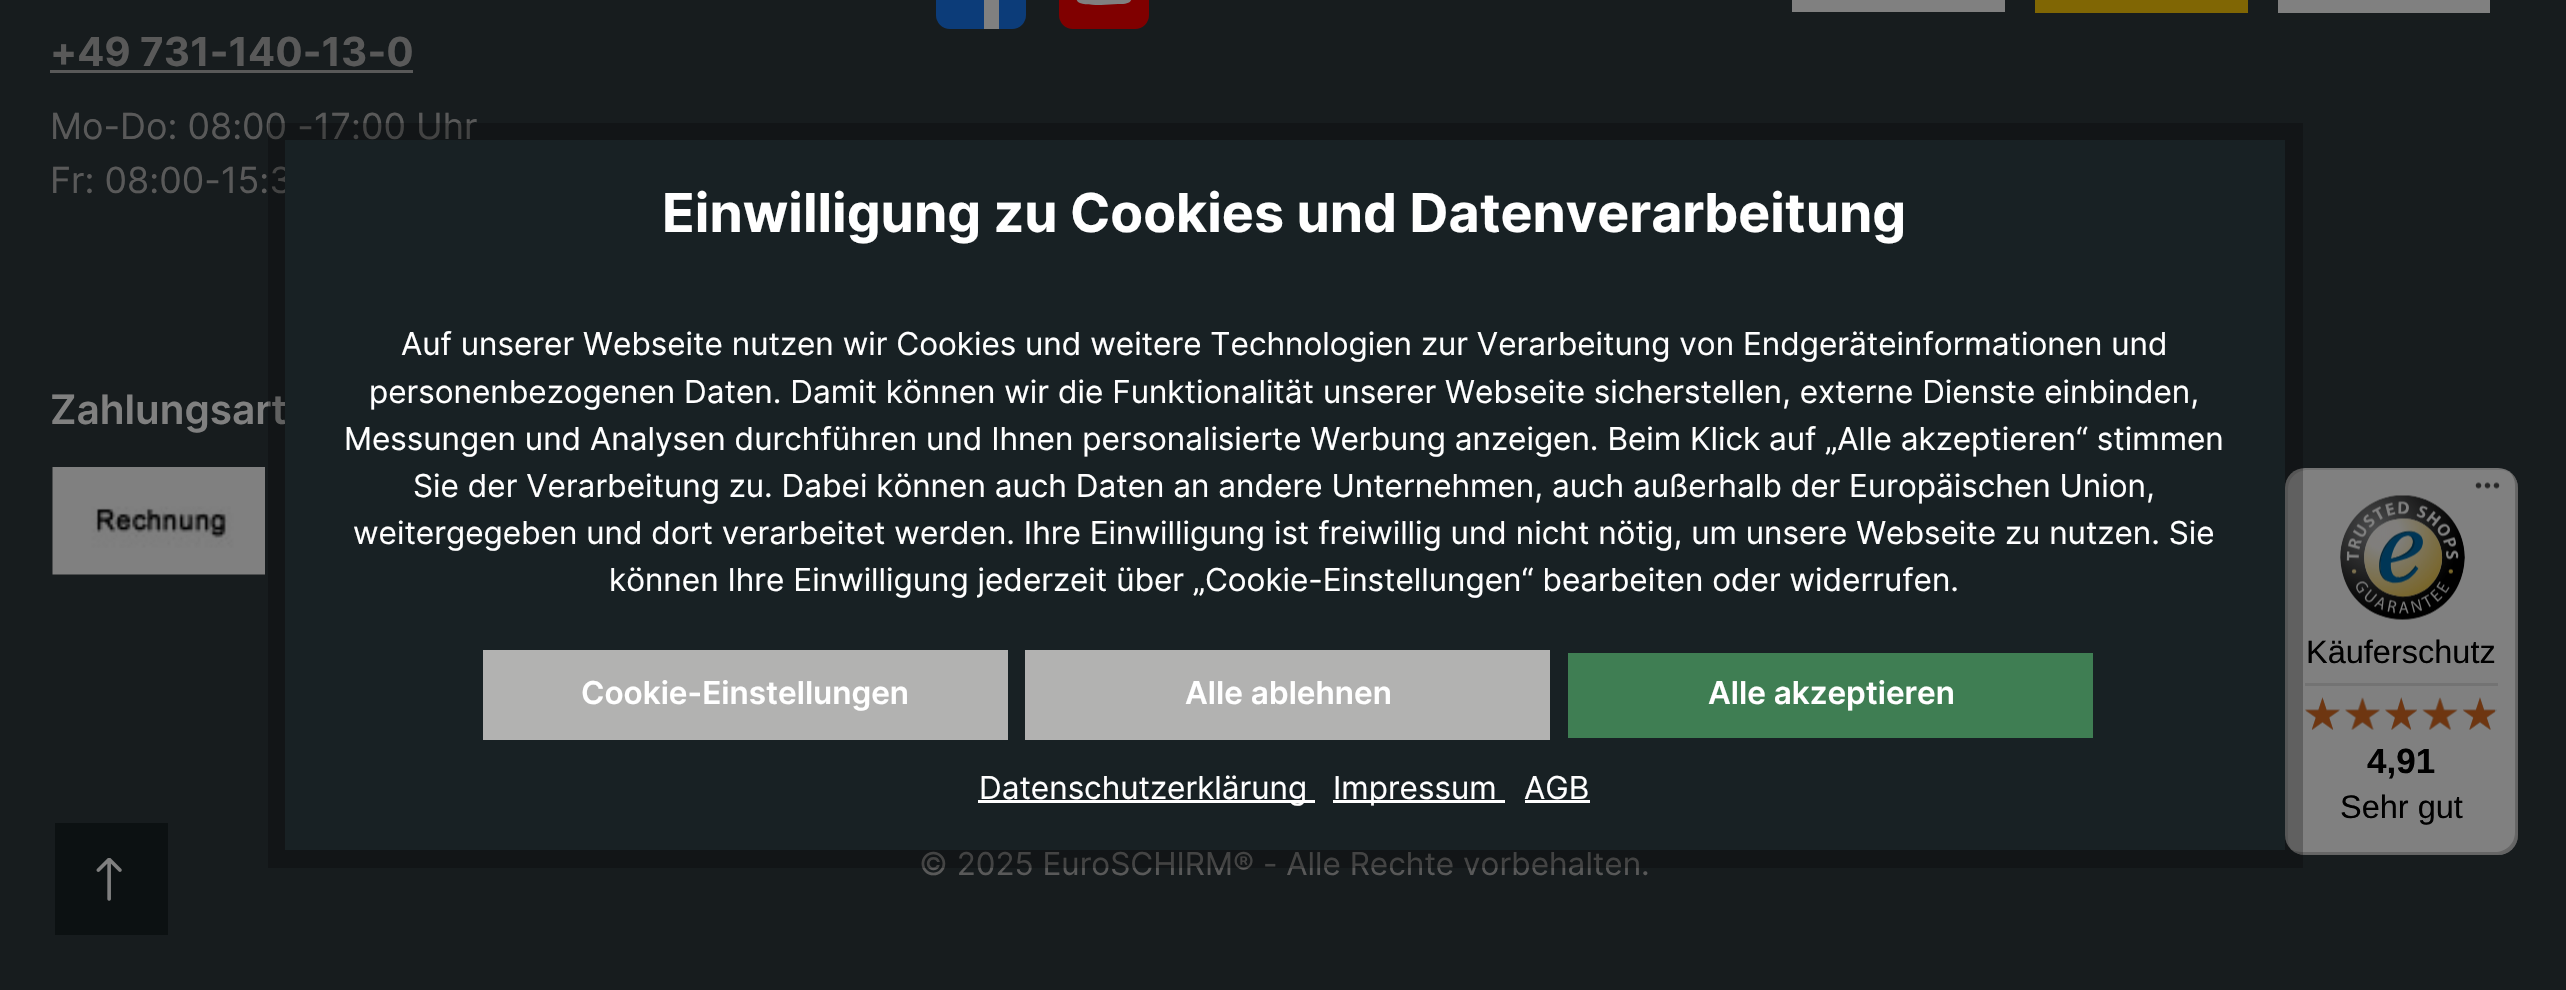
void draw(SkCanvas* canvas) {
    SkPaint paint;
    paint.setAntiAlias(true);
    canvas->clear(0xFF171C1E);
    paint.setColor(0xFF0C3C79);
    canvas->drawRoundRect(SkRect::MakeXYWH(936, -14, 90, 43), 14, 14, paint);
    paint.setColor(0xFF808080);
    canvas->drawPath(SkPathBuilder().moveTo(1010, -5).lineTo(1012, -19).lineTo(999, -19).cubicTo(999, -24, 997, -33, 1004, -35).lineTo(1012, -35).lineTo(1012, -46).cubicTo(1001, -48, 987, -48, 984, -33).lineTo(984, -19).lineTo(972, -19).lineTo(972, -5).lineTo(984, -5).lineTo(984, 29).lineTo(999, 29).lineTo(999, -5).close().detach(), paint);
    paint.setColor(0xFF800000);
    canvas->drawRoundRect(SkRect::MakeXYWH(1059, -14, 90, 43), 14, 14, paint);
    paint.setColor(0xFF808080);
    canvas->drawPath(SkPathBuilder().moveTo(1132, -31).cubicTo(1131, -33, 1130, -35, 1128, -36).cubicTo(1122, -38, 1098, -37, 1090, -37).cubicTo(1086, -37, 1080, -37, 1077, -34).cubicTo(1073, -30, 1074, -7, 1076, -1).lineTo(1078, 2).cubicTo(1082, 5, 1095, 5, 1101, 5).lineTo(1118, 4).cubicTo(1130, 4, 1132, 3, 1133, -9).cubicTo(1134, -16, 1133, -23, 1132, -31).close().moveTo(1098, -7).lineTo(1098, -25).lineTo(1113, -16).close().detach(), paint);
    canvas->drawRect(SkRect::MakeXYWH(1792, 0, 213, 12), paint);
    paint.setColor(0xFF806604);
    canvas->drawRect(SkRect::MakeXYWH(2035, 0, 213, 13), paint);
    paint.setColor(0xFF808080);
    canvas->drawRect(SkRect::MakeXYWH(2278, 0, 212, 13), paint);
    SkFont font1(fontMgr->matchFamilyStyle("Inter", SkFontStyle::Bold()), 40);
    font1.setSubpixel(true);
    paint.setColor(0xFF595959);
    canvas->drawString("+49 731-140-13-0", 50, 66, font1, paint);
    canvas->drawRect(SkRect::MakeXYWH(50, 70, 363, 3), paint);
    SkFont font2(fontMgr->matchFamilyStyle("Inter", SkFontStyle::Normal()), 36);
    font2.setSubpixel(true);
    canvas->drawString("Mo-Do: 08:00 -17:00 Uhr", 50, 139, font2, paint);
    canvas->drawString("Fr: 08:00-15:3", 50, 193, font2, paint);
    SkFont font3(fontMgr->matchFamilyStyle("Inter", SkFontStyle(600, SkFontStyle::kNormal_Width, SkFontStyle::kUpright_Slant)), 40.5f);
    font3.setSubpixel(true);
    paint.setColor(0xFF808080);
    canvas->drawString("Zahlungsart", 50, 424, font3, paint);
    canvas->drawImageRect(SkImages::DeferredFromEncodedData(SkData::MakeFromFileName("img1.png")), SkRect::MakeXYWH(52, 467, 213, 108), SkSamplingOptions());
    SkFont font4(fontMgr->matchFamilyStyle("Inter", SkFontStyle::Normal()), 31.5f);
    font4.setSubpixel(true);
    paint.setColor(0xFF595959);
    canvas->drawString("© 2025 EuroSCHIRM® - Alle Rechte vorbehalten.", 919, 875, font4, paint);
    paint.setColor(0xFF808080);
    canvas->drawRoundRect(SkRect::MakeXYWH(2285, 468, 233, 387), 20, 20, paint);
    paint.setColor(0x1A000000);
    canvas->drawPath(SkPathBuilder().moveTo(2308, 470).lineTo(2500, 470).cubicTo(2505, 470, 2510, 472, 2513, 475).cubicTo(2510, 471, 2504, 468, 2498, 468).lineTo(2305, 468).cubicTo(2294, 468, 2285, 477, 2285, 488).lineTo(2285, 835).cubicTo(2285, 841, 2288, 846, 2292, 850).cubicTo(2289, 847, 2288, 842, 2288, 838).lineTo(2288, 490).cubicTo(2288, 479, 2296, 470, 2308, 470).close().detach(), paint);
    paint.setColor(0x33000000);
    canvas->drawPath(SkPathBuilder().moveTo(2290, 848).cubicTo(2294, 852, 2299, 855, 2305, 855).lineTo(2498, 855).cubicTo(2509, 855, 2518, 846, 2518, 835).lineTo(2518, 488).cubicTo(2518, 482, 2515, 476, 2510, 472).cubicTo(2513, 476, 2515, 480, 2515, 485).lineTo(2515, 832).cubicTo(2515, 844, 2506, 852, 2495, 852).lineTo(2302, 852).cubicTo(2298, 852, 2293, 851, 2290, 848).close().detach(), paint);
    paint.setColor(0x33191919);
    canvas->drawPath(SkPathBuilder().moveTo(2293, 851).cubicTo(2296, 853, 2300, 855, 2305, 855).lineTo(2498, 855).cubicTo(2509, 855, 2518, 846, 2518, 835).lineTo(2518, 488).cubicTo(2518, 482, 2515, 476, 2511, 473).cubicTo(2514, 476, 2516, 481, 2516, 486).lineTo(2516, 834).cubicTo(2516, 845, 2507, 854, 2496, 854).lineTo(2304, 854).cubicTo(2300, 854, 2296, 853, 2293, 851).close().detach(), paint);
    paint.setColor(0x4D808080);
    canvas->drawPath(SkPathBuilder().moveTo(2290, 848).cubicTo(2294, 852, 2299, 855, 2305, 855).lineTo(2498, 855).cubicTo(2509, 855, 2518, 846, 2518, 835).lineTo(2518, 488).cubicTo(2518, 482, 2515, 476, 2511, 473).cubicTo(2514, 476, 2516, 481, 2516, 486).lineTo(2516, 834).cubicTo(2516, 845, 2507, 854, 2496, 854).lineTo(2304, 854).cubicTo(2299, 854, 2294, 852, 2290, 848).close().detach(), paint);
    paint.setStyle(SkPaint::kStroke_Style);
    paint.setStrokeWidth(18);
    paint.setColor(0x40000000);
    canvas->drawRect(SkRect::MakeXYWH(277, 132, 2017, 727), paint);
    paint.setStyle(SkPaint::kFill_Style);
    paint.setColor(0xFF182124);
    canvas->drawRect(SkRect::MakeXYWH(285, 140, 2000, 710), paint);
    SkFont font5(fontMgr->matchFamilyStyle("Inter", SkFontStyle::Bold()), 53.6f);
    font5.setSubpixel(true);
    paint.setColor(0xFFFFFFFF);
    canvas->drawString("Einwilligung zu Cookies und Datenverarbeitung", 662, 232, font5, paint);
    canvas->drawString("Auf unserer Webseite nutzen wir Cookies und weitere Technologien zur Verarbeitung von Endgeräteinformationen und", 401, 355, font4, paint);
    canvas->drawString("personenbezogenen Daten. Damit können wir die Funktionalität unserer Webseite sicherstellen, externe Dienste einbinden,", 369, 403, font4, paint);
    canvas->drawString("Messungen und Analysen durchführen und Ihnen personalisierte Werbung anzeigen. Beim Klick auf „Alle akzeptieren“ stimmen", 344, 450, font4, paint);
    canvas->drawString("Sie der Verarbeitung zu. Dabei können auch Daten an andere Unternehmen, auch außerhalb der Europäischen Union,", 413, 497, font4, paint);
    canvas->drawString("weitergegeben und dort verarbeitet werden. Ihre Einwilligung ist freiwillig und nicht nötig, um unsere Webseite zu nutzen. Sie", 353, 544, font4, paint);
    canvas->drawString("können Ihre Einwilligung jederzeit über „Cookie-Einstellungen“ bearbeiten oder widerrufen.", 609, 591, font4, paint);
    paint.setColor(0xFFB2B2B1);
    canvas->drawRect(SkRect::MakeXYWH(483, 650, 525, 90), paint);
    SkFont font6(fontMgr->matchFamilyStyle("Inter", SkFontStyle(600, SkFontStyle::kNormal_Width, SkFontStyle::kUpright_Slant)), 31.5f);
    font6.setSubpixel(true);
    paint.setColor(0xFFFFFFFF);
    canvas->drawString("Cookie-Einstellungen", 581, 704, font6, paint);
    paint.setColor(0xFFB2B2B1);
    canvas->drawRect(SkRect::MakeXYWH(1025, 650, 525, 90), paint);
    paint.setColor(0xFFFFFFFF);
    canvas->drawString("Alle ablehnen", 1185, 704, font6, paint);
    paint.setColor(0xFF3F7E53);
    canvas->drawRect(SkRect::MakeXYWH(1568, 653, 525, 85), paint);
    paint.setColor(0xFFFFFFFF);
    canvas->drawString("Alle akzeptieren", 1708, 704, font6, paint);
    canvas->drawRect(SkRect::MakeXYWH(978, 800, 337, 3), paint);
    canvas->drawString("Datenschutzerklärung", 979, 799, font4, paint);
    canvas->drawRect(SkRect::MakeXYWH(1333, 800, 172, 3), paint);
    canvas->drawString("Impressum", 1333, 799, font4, paint);
    canvas->drawString("AGB", 1524, 799, font4, paint);
    canvas->drawRect(SkRect::MakeXYWH(1525, 800, 65, 3), paint);
    canvas->drawImageRect(SkImages::DeferredFromEncodedData(SkData::MakeFromFileName("img2.png")), SkRect::MakeXYWH(2475, 482, 25, 7), SkSamplingOptions());
    canvas->drawImageRect(SkImages::DeferredFromEncodedData(SkData::MakeFromFileName("img3.png")), SkRect::MakeXYWH(2340, 495, 125, 125), SkSamplingOptions());
    SkFont font7(fontMgr->matchFamilyStyle("Liberation Sans", SkFontStyle::Normal()), 32.5f);
    font7.setSubpixel(true);
    paint.setColor(0xFF000000);
    canvas->drawString("Käuferschutz", 2306, 663, font7, paint);
    paint.setColor(0xFF737373);
    canvas->drawRect(SkRect::MakeXYWH(2305, 683, 193, 3), paint);
    canvas->drawImageRect(SkImages::DeferredFromEncodedData(SkData::MakeFromFileName("img4.png")), SkRect::MakeXYWH(2305, 697, 35, 33), SkSamplingOptions());
    canvas->drawImageRect(SkImages::DeferredFromEncodedData(SkData::MakeFromFileName("img5.png")), SkRect::MakeXYWH(2345, 698, 35, 32), SkSamplingOptions());
    canvas->drawImageRect(SkImages::DeferredFromEncodedData(SkData::MakeFromFileName("img6.png")), SkRect::MakeXYWH(2385, 697, 32, 33), SkSamplingOptions());
    canvas->drawImageRect(SkImages::DeferredFromEncodedData(SkData::MakeFromFileName("img7.png")), SkRect::MakeXYWH(2423, 698, 34, 32), SkSamplingOptions());
    canvas->drawImageRect(SkImages::DeferredFromEncodedData(SkData::MakeFromFileName("img8.png")), SkRect::MakeXYWH(2463, 697, 34, 33), SkSamplingOptions());
    canvas->drawImageRect(SkImages::DeferredFromEncodedData(SkData::MakeFromFileName("img9.png")), SkRect::MakeXYWH(2305, 697, 35, 33), SkSamplingOptions());
    canvas->drawImageRect(SkImages::DeferredFromEncodedData(SkData::MakeFromFileName("img10.png")), SkRect::MakeXYWH(2345, 697, 35, 33), SkSamplingOptions());
    canvas->drawImageRect(SkImages::DeferredFromEncodedData(SkData::MakeFromFileName("img11.png")), SkRect::MakeXYWH(2385, 697, 32, 33), SkSamplingOptions());
    canvas->drawImageRect(SkImages::DeferredFromEncodedData(SkData::MakeFromFileName("img12.png")), SkRect::MakeXYWH(2422, 697, 36, 33), SkSamplingOptions());
    canvas->drawImageRect(SkImages::DeferredFromEncodedData(SkData::MakeFromFileName("img13.png")), SkRect::MakeXYWH(2463, 697, 32, 33), SkSamplingOptions());
    SkFont font8(fontMgr->matchFamilyStyle("Liberation Sans", SkFontStyle::Bold()), 35);
    font8.setSubpixel(true);
    paint.setColor(0xFF000000);
    canvas->drawString("4,91", 2367, 773, font8, paint);
    canvas->drawString("Sehr gut", 2340, 818, font7, paint);
    paint.setColor(0xFF0C1112);
    canvas->drawRect(SkRect::MakeXYWH(55, 823, 113, 112), paint);
    canvas->drawImageRect(SkImages::DeferredFromEncodedData(SkData::MakeFromFileName("img14.png")), SkRect::MakeXYWH(96, 858, 26, 43), SkSamplingOptions());
}
